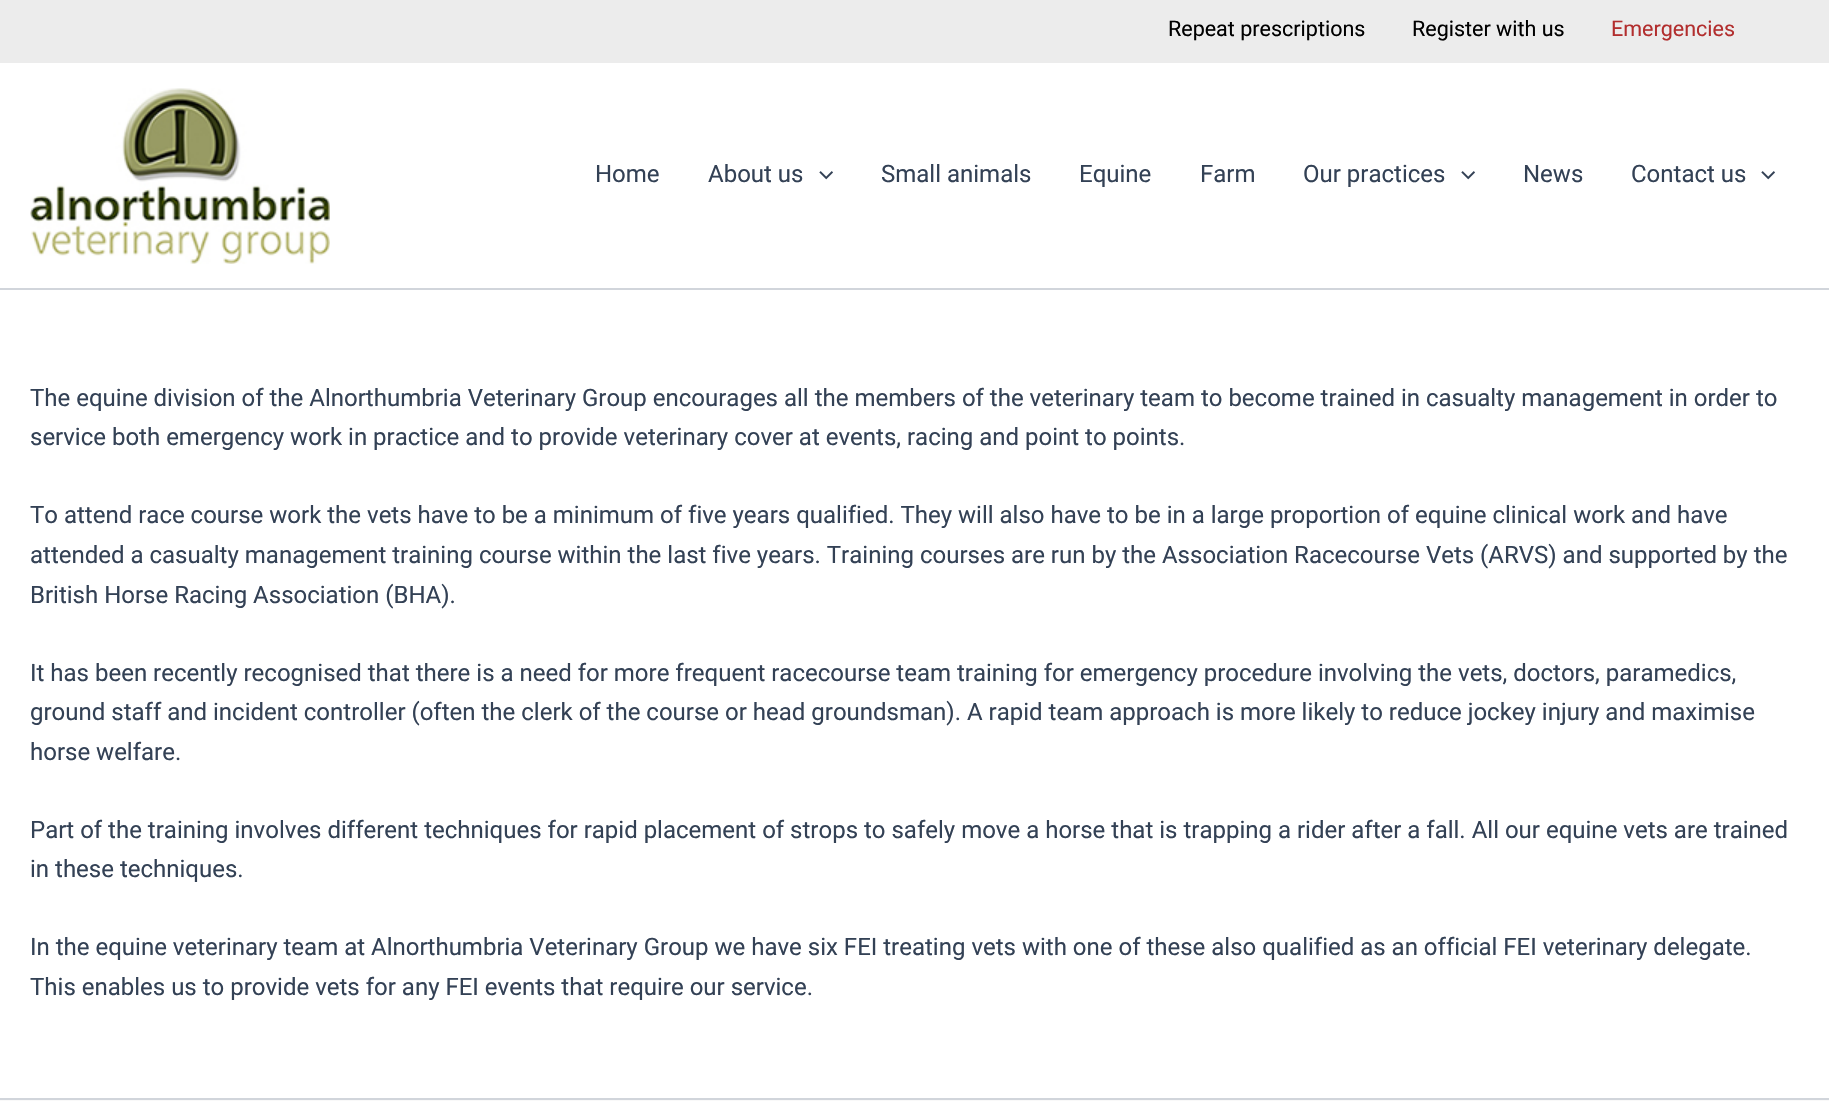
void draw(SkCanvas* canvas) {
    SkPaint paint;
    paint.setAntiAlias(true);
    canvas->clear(0xFFFFFFFF);
    paint.setColor(0xFFECECEC);
    canvas->drawRect(SkRect::MakeXYWH(0, 0, 1829, 63), paint);
    SkFont font1(fontMgr->matchFamilyStyle("Roboto", SkFontStyle::Normal()), 21.5f);
    font1.setSubpixel(true);
    paint.setColor(0xFF000000);
    canvas->drawString("Repeat prescriptions", 1168, 36, font1, paint);
    canvas->drawString("Register with us", 1412, 36, font1, paint);
    paint.setColor(0xFFB22E2E);
    canvas->drawString("Emergencies", 1611, 36, font1, paint);
    paint.setColor(0xFFD1D5DB);
    canvas->drawRect(SkRect::MakeXYWH(0, 288, 1829, 2), paint);
    canvas->drawImageRect(SkImages::DeferredFromEncodedData(SkData::MakeFromFileName("img1.png")), SkRect::MakeXYWH(30, 88, 300, 176), SkSamplingOptions());
    SkFont font2(fontMgr->matchFamilyStyle("Roboto", SkFontStyle::Normal()), 24);
    font2.setSubpixel(true);
    paint.setColor(0xFF334155);
    canvas->drawString("Home", 595, 182, font2, paint);
    canvas->drawString("About us", 708, 182, font2, paint);
    canvas->drawImageRect(SkImages::DeferredFromEncodedData(SkData::MakeFromFileName("img2.png")), SkRect::MakeXYWH(819, 171, 14, 9), SkSamplingOptions());
    canvas->drawString("Small animals", 881, 182, font2, paint);
    canvas->drawString("Equine", 1079, 182, font2, paint);
    canvas->drawString("Farm", 1200, 182, font2, paint);
    canvas->drawString("Our practices", 1303, 182, font2, paint);
    canvas->drawImageRect(SkImages::DeferredFromEncodedData(SkData::MakeFromFileName("img2.png")), SkRect::MakeXYWH(1461, 171, 14, 9), SkSamplingOptions());
    canvas->drawString("News", 1523, 182, font2, paint);
    canvas->drawString("Contact us", 1631, 182, font2, paint);
    canvas->drawImageRect(SkImages::DeferredFromEncodedData(SkData::MakeFromFileName("img2.png")), SkRect::MakeXYWH(1761, 171, 14, 9), SkSamplingOptions());
    canvas->drawString("The equine division of the Alnorthumbria Veterinary Group encourages all the members of the veterinary team to become trained in casualty management in order to", 30, 406, font2, paint);
    canvas->drawString("service both emergency work in practice and to provide veterinary cover at events, racing and point to points.", 30, 445, font2, paint);
    canvas->drawString("To attend race course work the vets have to be a minimum of five years qualified. They will also have to be in a large proportion of equine clinical work and have", 30, 523, font2, paint);
    canvas->drawString("attended a casualty management training course within the last five years. Training courses are run by the Association Racecourse Vets (ARVS) and supported by the", 30, 563, font2, paint);
    canvas->drawString("British Horse Racing Association (BHA).", 30, 603, font2, paint);
    canvas->drawString("It has been recently recognised that there is a need for more frequent racecourse team training for emergency procedure involving the vets, doctors, paramedics,", 30, 681, font2, paint);
    canvas->drawString("ground staff and incident controller (often the clerk of the course or head groundsman). A rapid team approach is more likely to reduce jockey injury and maximise", 30, 720, font2, paint);
    canvas->drawString("horse welfare.", 30, 760, font2, paint);
    canvas->drawString("Part of the training involves different techniques for rapid placement of strops to safely move a horse that is trapping a rider after a fall. All our equine vets are trained", 30, 838, font2, paint);
    canvas->drawString("in these techniques.", 30, 877, font2, paint);
    canvas->drawString("In the equine veterinary team at Alnorthumbria Veterinary Group we have six FEI treating vets with one of these also qualified as an official FEI veterinary delegate.", 30, 955, font2, paint);
    canvas->drawString("This enables us to provide vets for any FEI events that require our service.", 30, 995, font2, paint);
    paint.setColor(0xFFF9F9F9);
    canvas->drawRect(SkRect::MakeXYWH(0, 1100, 1829, 1), paint);
    paint.setColor(0xFFD1D5DB);
    canvas->drawRect(SkRect::MakeXYWH(0, 1098, 1829, 2), paint);
}
